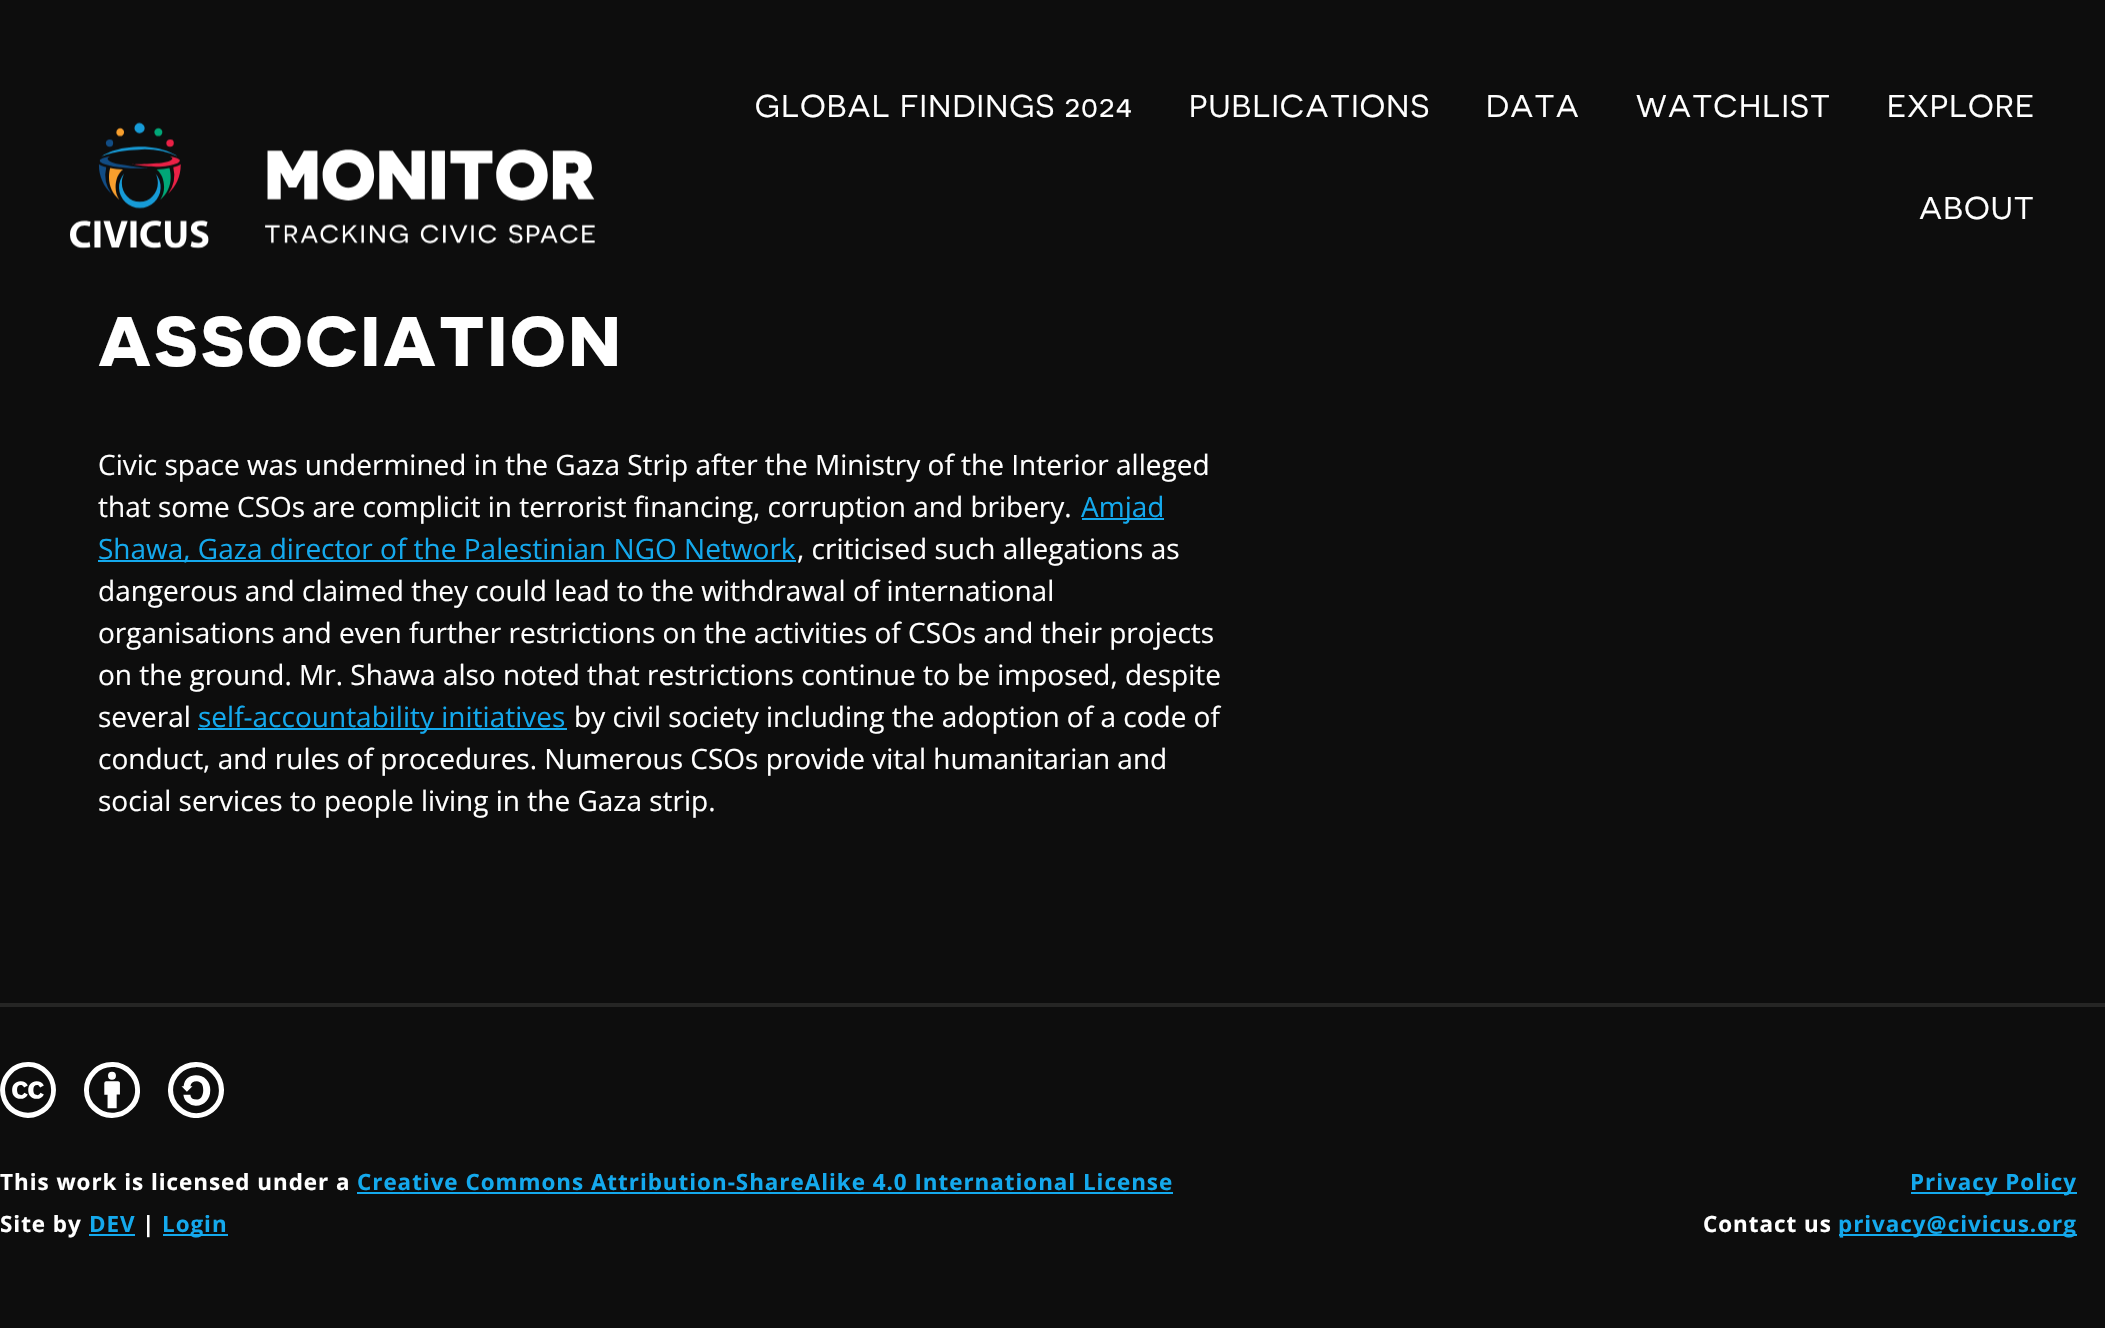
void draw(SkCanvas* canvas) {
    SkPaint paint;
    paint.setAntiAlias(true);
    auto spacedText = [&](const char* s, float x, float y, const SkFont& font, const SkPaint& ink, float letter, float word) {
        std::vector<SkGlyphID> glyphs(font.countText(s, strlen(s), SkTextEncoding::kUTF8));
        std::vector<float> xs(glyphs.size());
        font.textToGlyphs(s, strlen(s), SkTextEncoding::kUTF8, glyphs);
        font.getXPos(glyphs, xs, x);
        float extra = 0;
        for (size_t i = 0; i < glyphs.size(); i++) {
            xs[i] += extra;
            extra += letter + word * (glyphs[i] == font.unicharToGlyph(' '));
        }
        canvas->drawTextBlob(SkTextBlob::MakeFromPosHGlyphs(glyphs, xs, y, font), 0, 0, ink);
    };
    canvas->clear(0xFF0D0D0D);
    canvas->drawImageRect(SkImages::DeferredFromEncodedData(SkData::MakeFromFileName("img1.png")), SkRect::MakeXYWH(70, 122, 525, 127), SkSamplingOptions());
    SkFont font1(fontMgr->matchFamilyStyle("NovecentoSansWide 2", SkFontStyle::Normal()), 31.5f);
    font1.setSubpixel(true);
    paint.setColor(0xFFFFFFFF);
    spacedText("GLOBAL FINDINGS 2024", 755, 117, font1, paint, 1.25f, 0);
    spacedText("PUBLICATIONS", 1189, 117, font1, paint, 1.25f, 0);
    spacedText("DATA", 1486, 117, font1, paint, 1.25f, 0);
    spacedText("WATCHLIST", 1636, 117, font1, paint, 1.25f, 0);
    spacedText("EXPLORE", 1887, 117, font1, paint, 1.25f, 0);
    spacedText("ABOUT", 1919, 219, font1, paint, 1.25f, 0);
    SkFont font2(fontMgr->matchFamilyStyle("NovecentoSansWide", SkFontStyle::Normal()), 70);
    font2.setSubpixel(true);
    spacedText("ASSOCIATION", 98, 366, font2, paint, 2.75f, 0);
    SkFont font3(fontMgr->matchFamilyStyle("Open Sans", SkFontStyle::Normal()), 28);
    font3.setSubpixel(true);
    canvas->drawString("Civic space was undermined in the Gaza Strip after the Ministry of the Interior alleged", 98, 475, font3, paint);
    canvas->drawString("that some CSOs are complicit in terrorist financing, corruption and bribery.", 98, 517, font3, paint);
    paint.setColor(0xFF14A9ED);
    canvas->drawRect(SkRect::MakeXYWH(1082, 518, 82, 2), paint);
    canvas->drawString("Amjad", 1081, 517, font3, paint);
    canvas->drawRect(SkRect::MakeXYWH(98, 560, 698, 2), paint);
    canvas->drawString("Shawa, Gaza director of the Palestinian NGO Network", 98, 559, font3, paint);
    paint.setColor(0xFFFFFFFF);
    canvas->drawString(", criticised such allegations as", 797, 559, font3, paint);
    canvas->drawString("dangerous and claimed they could lead to the withdrawal of international", 98, 601, font3, paint);
    canvas->drawString("organisations and even further restrictions on the activities of CSOs and their projects", 98, 643, font3, paint);
    canvas->drawString("on the ground. Mr. Shawa also noted that restrictions continue to be imposed, despite", 98, 685, font3, paint);
    canvas->drawString("several", 98, 727, font3, paint);
    paint.setColor(0xFF14A9ED);
    canvas->drawRect(SkRect::MakeXYWH(198, 728, 369, 2), paint);
    canvas->drawString("self-accountability initiatives", 198, 727, font3, paint);
    paint.setColor(0xFFFFFFFF);
    canvas->drawString("by civil society including the adoption of a code of", 574, 727, font3, paint);
    canvas->drawString("conduct, and rules of procedures. Numerous CSOs provide vital humanitarian and", 98, 769, font3, paint);
    canvas->drawString("social services to people living in the Gaza strip.", 98, 811, font3, paint);
    paint.setColor(0xFF252524);
    canvas->drawRect(SkRect::MakeXYWH(0, 1003, 2105, 4), paint);
    canvas->drawImageRect(SkImages::DeferredFromEncodedData(SkData::MakeFromFileName("img2.png")), SkRect::MakeXYWH(0, 1062, 56, 56), SkSamplingOptions());
    canvas->drawImageRect(SkImages::DeferredFromEncodedData(SkData::MakeFromFileName("img3.png")), SkRect::MakeXYWH(84, 1062, 56, 56), SkSamplingOptions());
    canvas->drawImageRect(SkImages::DeferredFromEncodedData(SkData::MakeFromFileName("img4.png")), SkRect::MakeXYWH(168, 1062, 56, 56), SkSamplingOptions());
    SkFont font4(fontMgr->matchFamilyStyle("Open Sans", SkFontStyle::Bold()), 22.4f);
    font4.setSubpixel(true);
    paint.setColor(0xFFFFFFFF);
    spacedText("This work is licensed under a", 0, 1190, font4, paint, 0.98f, 0);
    paint.setColor(0xFF14A9ED);
    spacedText("Creative Commons Attribution-ShareAlike 4.0 International License", 357, 1190, font4, paint, 0.98f, 0);
    canvas->drawRect(SkRect::MakeXYWH(357, 1192, 816, 2), paint);
    paint.setColor(0xFFFFFFFF);
    spacedText("Site by", 0, 1232, font4, paint, 0.98f, 0);
    paint.setColor(0xFF14A9ED);
    spacedText("DEV", 89, 1232, font4, paint, 0.98f, 0);
    canvas->drawRect(SkRect::MakeXYWH(89, 1234, 46, 2), paint);
    paint.setColor(0xFFFFFFFF);
    spacedText("|", 142, 1232, font4, paint, 0.98f, 0);
    paint.setColor(0xFF14A9ED);
    canvas->drawRect(SkRect::MakeXYWH(163, 1234, 65, 2), paint);
    spacedText("Login", 162, 1232, font4, paint, 0.98f, 0);
    canvas->drawRect(SkRect::MakeXYWH(1911, 1192, 166, 2), paint);
    spacedText("Privacy Policy", 1910, 1190, font4, paint, 0.98f, 0);
    paint.setColor(0xFFFFFFFF);
    spacedText("Contact us", 1703, 1232, font4, paint, 0.98f, 0);
    paint.setColor(0xFF14A9ED);
    canvas->drawRect(SkRect::MakeXYWH(1839, 1234, 238, 2), paint);
    spacedText("privacy@civicus.org", 1838, 1232, font4, paint, 0.98f, 0);
}
